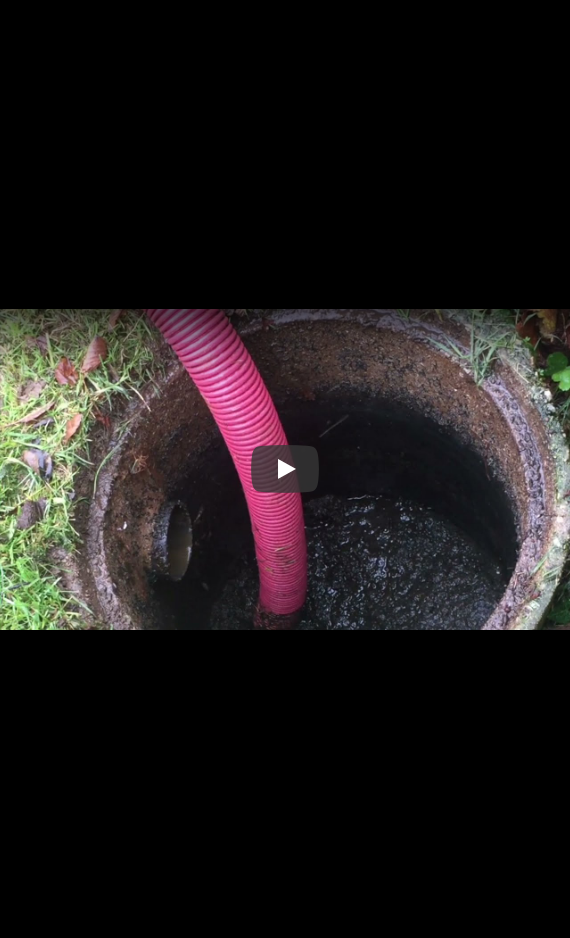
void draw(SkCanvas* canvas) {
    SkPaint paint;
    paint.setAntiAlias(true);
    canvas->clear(0xFF000000);
    canvas->drawImageRect(SkImages::DeferredFromEncodedData(SkData::MakeFromFileName("img1.png")), SkRect::MakeXYWH(0, 309, 570, 321), SkSamplingOptions());
    canvas->drawImageRect(SkImages::DeferredFromEncodedData(SkData::MakeFromFileName("img2.png")), SkRect::MakeXYWH(0, 309, 570, 82), SkSamplingOptions());
    canvas->drawImageRect(SkImages::DeferredFromEncodedData(SkData::MakeFromFileName("img3.png")), SkRect::MakeXYWH(251, 445, 68, 48), SkSamplingOptions());
}
